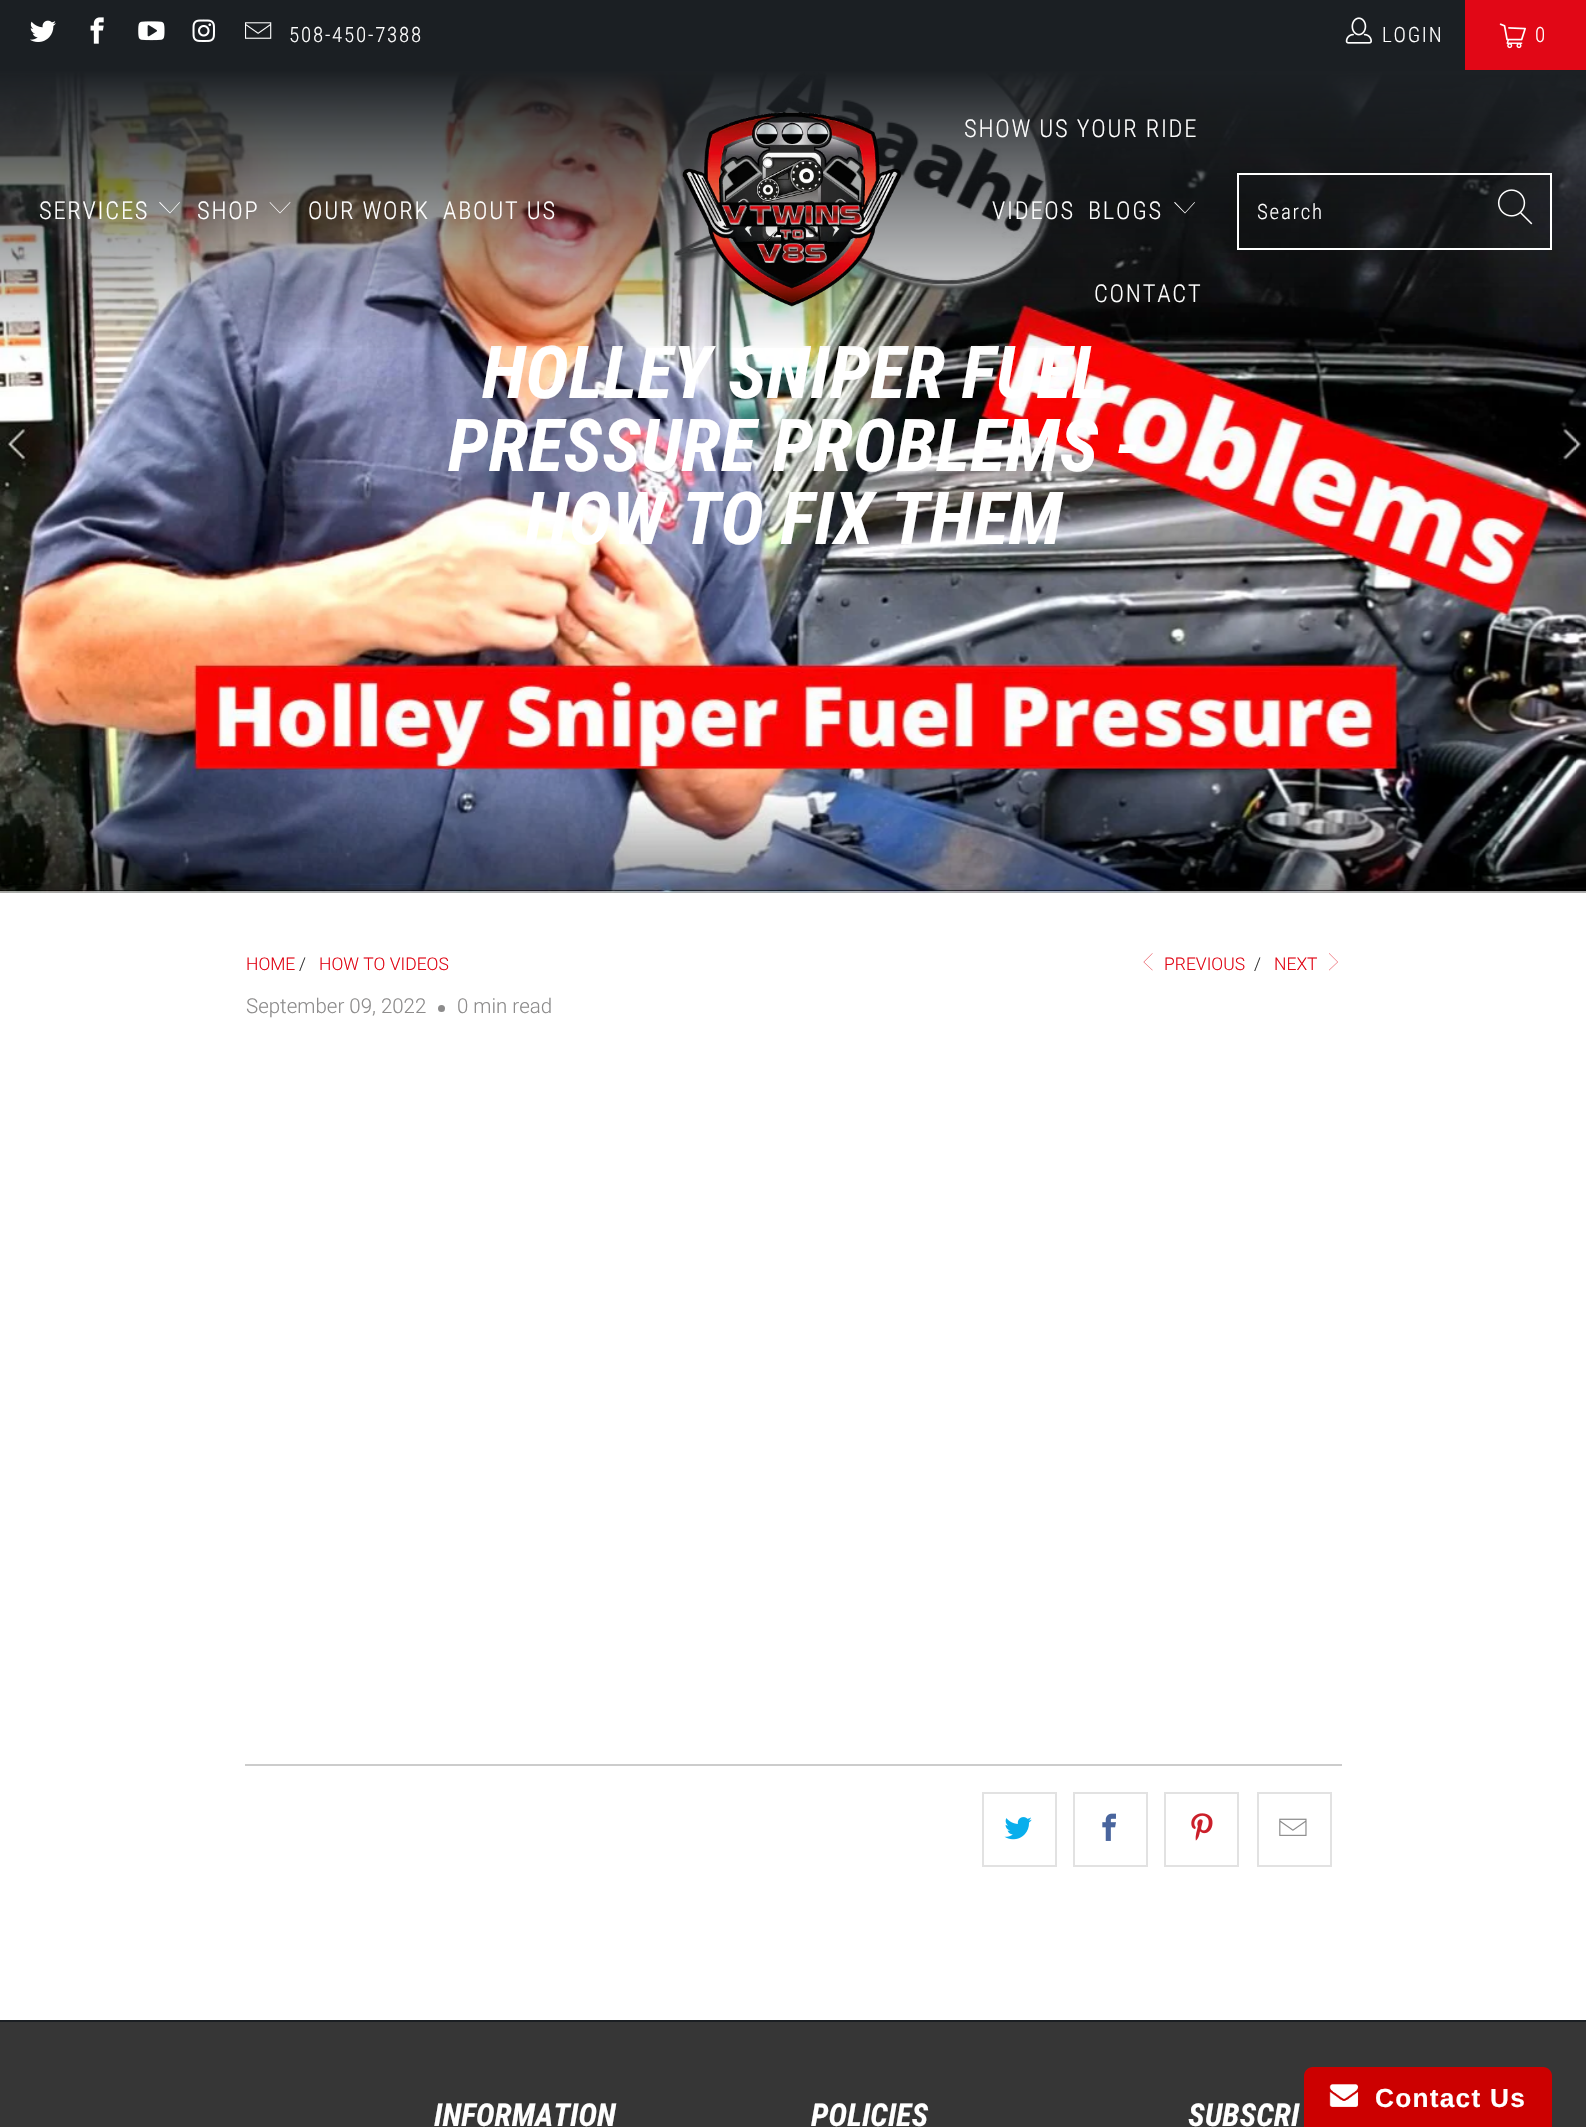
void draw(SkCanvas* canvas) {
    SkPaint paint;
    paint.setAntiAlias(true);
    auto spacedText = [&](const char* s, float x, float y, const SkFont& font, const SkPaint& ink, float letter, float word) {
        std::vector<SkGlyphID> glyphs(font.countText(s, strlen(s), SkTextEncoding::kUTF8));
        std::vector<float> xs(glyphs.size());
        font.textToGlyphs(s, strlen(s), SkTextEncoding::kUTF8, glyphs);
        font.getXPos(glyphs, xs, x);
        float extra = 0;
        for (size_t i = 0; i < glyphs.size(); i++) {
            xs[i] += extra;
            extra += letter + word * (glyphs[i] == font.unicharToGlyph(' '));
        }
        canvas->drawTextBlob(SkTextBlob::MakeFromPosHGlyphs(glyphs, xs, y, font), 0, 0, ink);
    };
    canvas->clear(0xFFFFFFFF);
    paint.setColor(0xFF1B1F23);
    canvas->drawRect(SkRect::MakeXYWH(0, 0, 1465, 70), paint);
    canvas->drawImageRect(SkImages::DeferredFromEncodedData(SkData::MakeFromFileName("img1.png")), SkRect::MakeXYWH(30, 20, 26, 22), SkSamplingOptions());
    canvas->drawImageRect(SkImages::DeferredFromEncodedData(SkData::MakeFromFileName("img2.png")), SkRect::MakeXYWH(90, 17, 14, 27), SkSamplingOptions());
    canvas->drawImageRect(SkImages::DeferredFromEncodedData(SkData::MakeFromFileName("img3.png")), SkRect::MakeXYWH(138, 21, 27, 20), SkSamplingOptions());
    canvas->drawImageRect(SkImages::DeferredFromEncodedData(SkData::MakeFromFileName("img4.png")), SkRect::MakeXYWH(192, 19, 23, 23), SkSamplingOptions());
    canvas->drawImageRect(SkImages::DeferredFromEncodedData(SkData::MakeFromFileName("img5.png")), SkRect::MakeXYWH(245, 22, 27, 17), SkSamplingOptions());
    SkFont font1(fontMgr->matchFamilyStyle("Roboto Condensed", SkFontStyle(300, SkFontStyle::kNormal_Width, SkFontStyle::kUpright_Slant)), 21);
    font1.setSubpixel(true);
    paint.setColor(0xFFFFFFFF);
    spacedText("508-450-7388", 289, 42, font1, paint, 1.75f, 0);
    canvas->drawImageRect(SkImages::DeferredFromEncodedData(SkData::MakeFromFileName("img6.png")), SkRect::MakeXYWH(1345, 17, 27, 27), SkSamplingOptions());
    spacedText("LOGIN", 1382, 42, font1, paint, 1.75f, 0);
    paint.setColor(0xFFE10716);
    canvas->drawRect(SkRect::MakeXYWH(1465, 0, 121, 70), paint);
    canvas->drawImageRect(SkImages::DeferredFromEncodedData(SkData::MakeFromFileName("img7.png")), SkRect::MakeXYWH(1499, 23, 27, 26), SkSamplingOptions());
    paint.setColor(0xFFFFFFFF);
    spacedText("0", 1535, 42, font1, paint, 1.75f, 0);
    paint.setColor(0xFF666666);
    canvas->drawRect(SkRect::MakeXYWH(0, 892, 1586, 1), paint);
    canvas->drawImageRect(SkImages::DeferredFromEncodedData(SkData::MakeFromFileName("img10.png")), SkRect::MakeXYWH(0, 72, 1586, 821), SkSamplingOptions());
    SkFont font2(fontMgr->matchFamilyStyle("Roboto Condensed", SkFontStyle::BoldItalic()), 73);
    font2.setSubpixel(true);
    paint.setColor(0xFFFFFFFF);
    canvas->drawString("HOLLEY SNIPER FUEL", 482, 398, font2, paint);
    {
        const SkColor colors[] = {0xFF1B1F23, 0x001B1F23};
        const float stops[] = {0, 1};
        const SkPoint ends[] = {{794, 70}, {794, 354}};
        paint.setShader(SkGradientShader::MakeLinear(ends, colors, stops, 2, SkTileMode::kClamp));
        paint.setAlpha(255);
    }
    canvas->drawRect(SkRect::MakeXYWH(0, 70, 1586, 278), paint);
    SkFont font3(fontMgr->matchFamilyStyle("Roboto Condensed", SkFontStyle(300, SkFontStyle::kNormal_Width, SkFontStyle::kUpright_Slant)), 24.5f);
    font3.setSubpixel(true);
    paint.setShader(nullptr);
    paint.setColor(0xFFFFFFFF);
    spacedText("SERVICES", 39, 219, font3, paint, 1.75f, 0);
    canvas->drawPath(SkPathBuilder().moveTo(170, 213.5f).lineTo(159, 202.5f).lineTo(160, 202).lineTo(170, 212.5f).lineTo(179.5f, 202).lineTo(180, 202.5f).close().detach(), paint);
    spacedText("SHOP", 197, 219, font3, paint, 1.75f, 0);
    canvas->drawPath(SkPathBuilder().moveTo(280, 213.5f).lineTo(269.5f, 202.5f).lineTo(270, 202).lineTo(280, 212.5f).lineTo(290, 202).lineTo(290.5f, 202.5f).close().detach(), paint);
    spacedText("OUR WORK", 308, 219, font3, paint, 1.75f, 0);
    spacedText("ABOUT US", 443, 219, font3, paint, 1.75f, 0);
    canvas->drawImageRect(SkImages::DeferredFromEncodedData(SkData::MakeFromFileName("img8.png")), SkRect::MakeXYWH(682, 112, 220, 195), SkSamplingOptions());
    spacedText("SHOW US YOUR RIDE", 964, 137, font3, paint, 1.75f, 0);
    spacedText("VIDEOS", 992, 219, font3, paint, 1.75f, 0);
    spacedText("BLOGS", 1088, 219, font3, paint, 1.75f, 0);
    canvas->drawPath(SkPathBuilder().moveTo(1185, 213.5f).lineTo(1174, 202.5f).lineTo(1175, 202).lineTo(1185, 212.5f).lineTo(1194.5f, 202).lineTo(1195, 202.5f).close().detach(), paint);
    spacedText("CONTACT", 1094, 302, font3, paint, 1.75f, 0);
    paint.setStyle(SkPaint::kStroke_Style);
    paint.setStrokeWidth(2);
    canvas->drawRect(SkRect::MakeXYWH(1238, 174, 313, 75), paint);
    paint.setStyle(SkPaint::kFill_Style);
    spacedText("Search", 1257, 219, font1, paint, 1.75f, 0);
    canvas->drawImageRect(SkImages::DeferredFromEncodedData(SkData::MakeFromFileName("img9.png")), SkRect::MakeXYWH(1497, 189, 36, 36), SkSamplingOptions());
    canvas->drawString("PRESSURE PROBLEMS -", 448, 471, font2, paint);
    canvas->drawString("HOW TO FIX THEM", 525, 544, font2, paint);
    SkFont font4(fontMgr->matchFamilyStyle("Roboto", SkFontStyle(300, SkFontStyle::kNormal_Width, SkFontStyle::kUpright_Slant)), 17.5f);
    font4.setSubpixel(true);
    paint.setColor(0xFFE10716);
    canvas->drawString("HOME", 246, 970, font4, paint);
    paint.setColor(0xFF333333);
    canvas->drawString("/", 299, 970, font4, paint);
    paint.setColor(0xFFE10716);
    canvas->drawString("HOW TO VIDEOS", 319, 970, font4, paint);
    canvas->drawPath(SkPathBuilder().moveTo(1152.5f, 970.5f).lineTo(1143.5f, 962).lineTo(1152.5f, 953).lineTo(1152.5f, 953.5f).lineTo(1144, 962).lineTo(1152.5f, 970).close().detach(), paint);
    canvas->drawString("PREVIOUS", 1164, 970, font4, paint);
    paint.setColor(0xFF333333);
    canvas->drawString("/", 1254, 970, font4, paint);
    paint.setColor(0xFFE10716);
    canvas->drawString("NEXT", 1274, 970, font4, paint);
    canvas->drawPath(SkPathBuilder().moveTo(1329, 970.5f).lineTo(1329, 970).lineTo(1337.5f, 962).lineTo(1329, 953.5f).lineTo(1329, 953).lineTo(1338, 962).close().detach(), paint);
    SkFont font5(fontMgr->matchFamilyStyle("Roboto", SkFontStyle(300, SkFontStyle::kNormal_Width, SkFontStyle::kUpright_Slant)), 20.5f);
    font5.setSubpixel(true);
    paint.setColor(0xFF8C8B8B);
    canvas->drawString("September 09, 2022", 246, 1013, font5, paint);
    canvas->drawCircle(441.5f, 1008.5f, 3.5f, paint);
    canvas->drawString("0 min read", 457, 1013, font5, paint);
    paint.setColor(0xFFCCCCCC);
    canvas->drawRect(SkRect::MakeXYWH(245, 1764, 1097, 2), paint);
    paint.setStyle(SkPaint::kStroke_Style);
    paint.setColor(0xFFE2E2E2);
    canvas->drawRect(SkRect::MakeXYWH(983, 1793, 73, 73), paint);
    canvas->drawImageRect(SkImages::DeferredFromEncodedData(SkData::MakeFromFileName("img11.png")), SkRect::MakeXYWH(1004, 1817, 28, 23), SkSamplingOptions());
    canvas->drawRect(SkRect::MakeXYWH(1074, 1793, 73, 73), paint);
    canvas->drawImageRect(SkImages::DeferredFromEncodedData(SkData::MakeFromFileName("img12.png")), SkRect::MakeXYWH(1102, 1813, 14, 28), SkSamplingOptions());
    canvas->drawRect(SkRect::MakeXYWH(1165, 1793, 73, 73), paint);
    canvas->drawImageRect(SkImages::DeferredFromEncodedData(SkData::MakeFromFileName("img13.png")), SkRect::MakeXYWH(1191, 1813, 22, 28), SkSamplingOptions());
    canvas->drawRect(SkRect::MakeXYWH(1258, 1793, 73, 73), paint);
    canvas->drawImageRect(SkImages::DeferredFromEncodedData(SkData::MakeFromFileName("img14.png")), SkRect::MakeXYWH(1279, 1818, 28, 18), SkSamplingOptions());
    paint.setStyle(SkPaint::kFill_Style);
    paint.setColor(0xFF363636);
    canvas->drawRect(SkRect::MakeXYWH(0, 2022, 1586, 105), paint);
    paint.setColor(0xFFCC0000);
    canvas->drawPath(SkPathBuilder().moveTo(1313, 2067).lineTo(1543, 2067).cubicTo(1548, 2067, 1552, 2071, 1552, 2076).lineTo(1552, 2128).lineTo(1304, 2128).lineTo(1304, 2076).cubicTo(1304, 2071, 1308, 2067, 1313, 2067).close().detach(), paint);
    canvas->drawImageRect(SkImages::DeferredFromEncodedData(SkData::MakeFromFileName("img15.png")), SkRect::MakeXYWH(1329, 2084, 30, 23), SkSamplingOptions());
    SkFont font6(fontMgr->matchFamilyStyle("Liberation Sans", SkFontStyle::Bold()), 26.25f);
    font6.setSubpixel(true);
    paint.setColor(0xFFFFFFFF);
    spacedText("Contact Us", 1375, 2107, font6, paint, 1.25f, 0);
    paint.setColor(0xFF1B1F23);
    canvas->drawRect(SkRect::MakeXYWH(0, 2020, 1586, 2), paint);
    SkFont font7(fontMgr->matchFamilyStyle("Roboto Condensed", SkFontStyle::BoldItalic()), 31.5f);
    font7.setSubpixel(true);
    paint.setColor(0xFFFFFFFF);
    canvas->drawString("INFORMATION", 434, 2126, font7, paint);
    canvas->drawString("POLICIES", 811, 2126, font7, paint);
    canvas->drawString("SUBSCRI", 1188, 2126, font7, paint);
}
